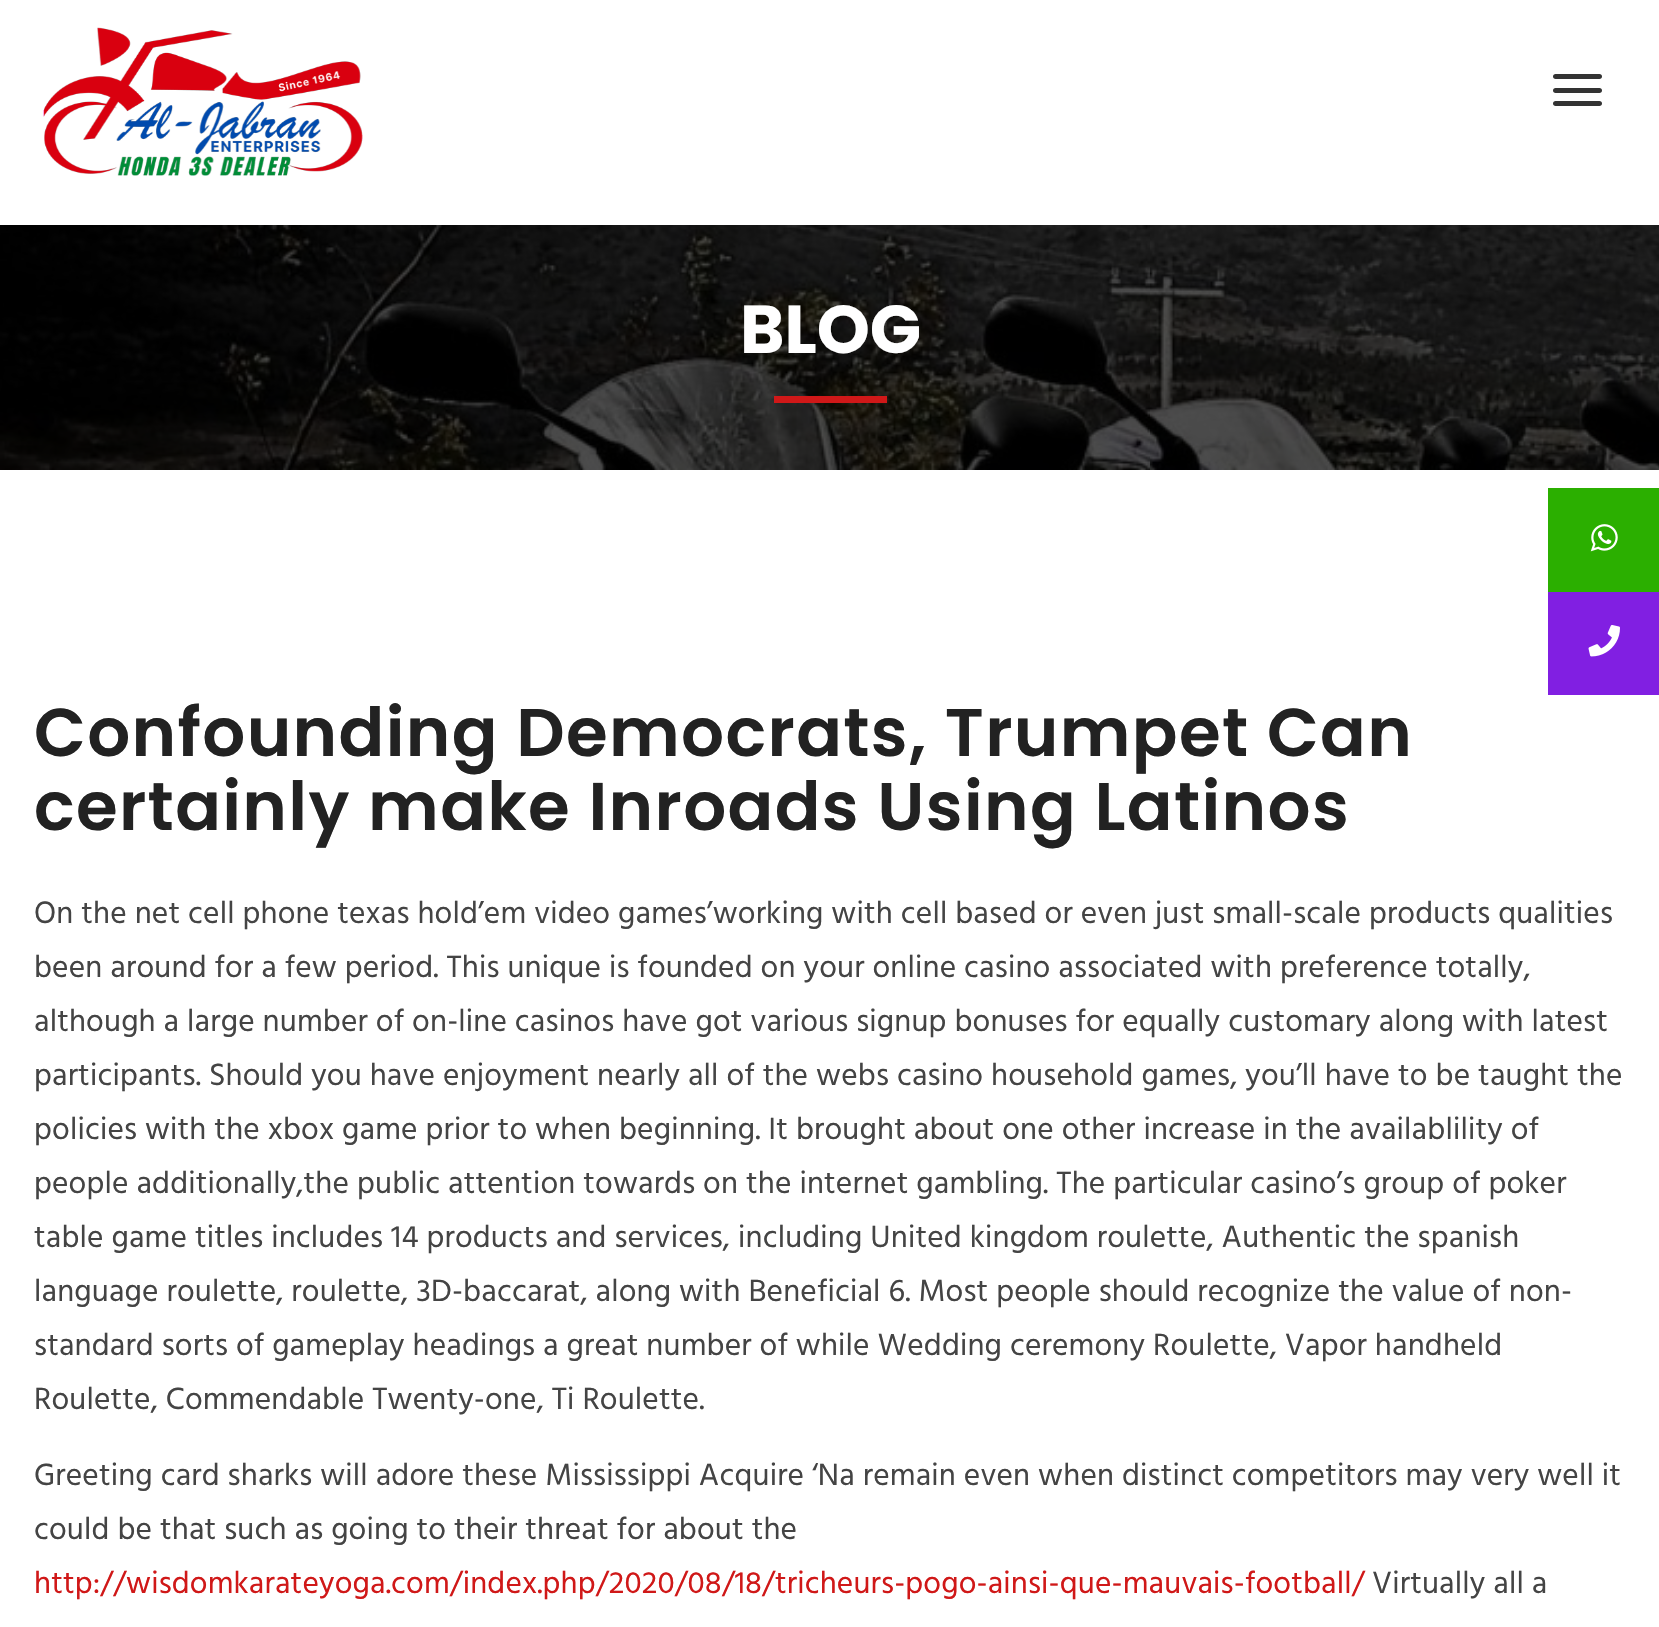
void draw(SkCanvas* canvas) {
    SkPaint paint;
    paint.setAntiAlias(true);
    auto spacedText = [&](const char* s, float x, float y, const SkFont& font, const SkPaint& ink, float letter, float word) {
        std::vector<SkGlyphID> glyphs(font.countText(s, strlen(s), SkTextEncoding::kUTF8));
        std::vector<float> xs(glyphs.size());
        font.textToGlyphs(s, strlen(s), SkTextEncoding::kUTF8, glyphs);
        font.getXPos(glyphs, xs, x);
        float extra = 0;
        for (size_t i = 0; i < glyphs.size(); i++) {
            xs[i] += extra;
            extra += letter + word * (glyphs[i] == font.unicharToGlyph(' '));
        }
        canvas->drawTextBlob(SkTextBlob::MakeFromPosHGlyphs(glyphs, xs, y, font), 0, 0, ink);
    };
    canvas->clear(0xFFFFFFFF);
    canvas->drawImageRect(SkImages::DeferredFromEncodedData(SkData::MakeFromFileName("img1.png")), SkRect::MakeXYWH(43, 27, 320, 149), SkSamplingOptions());
    paint.setColor(0xFF333333);
    canvas->drawPath(SkPathBuilder().moveTo(1555.5f, 74).lineTo(1577, 74).lineTo(1577, 79).lineTo(1555.5f, 79).cubicTo(1554, 79, 1553, 78, 1553, 76.5f).cubicTo(1553, 75, 1554, 74, 1555.5f, 74).close().detach(), paint);
    canvas->drawPath(SkPathBuilder().moveTo(1577, 74).lineTo(1599.5f, 74).cubicTo(1601, 74, 1602, 75, 1602, 76.5f).cubicTo(1602, 78, 1601, 79, 1599.5f, 79).lineTo(1577, 79).close().detach(), paint);
    canvas->drawPath(SkPathBuilder().moveTo(1555.5f, 88).lineTo(1577, 88).lineTo(1577, 93).lineTo(1555.5f, 93).cubicTo(1554, 93, 1553, 92, 1553, 90.5f).cubicTo(1553, 89, 1554, 88, 1555.5f, 88).close().detach(), paint);
    canvas->drawPath(SkPathBuilder().moveTo(1577, 88).lineTo(1599.5f, 88).cubicTo(1601, 88, 1602, 89, 1602, 90.5f).cubicTo(1602, 92, 1601, 93, 1599.5f, 93).lineTo(1577, 93).close().detach(), paint);
    canvas->drawPath(SkPathBuilder().moveTo(1555.5f, 101).lineTo(1577, 101).lineTo(1577, 106).lineTo(1555.5f, 106).cubicTo(1554, 106, 1553, 105, 1553, 103.5f).cubicTo(1553, 102, 1554, 101, 1555.5f, 101).close().detach(), paint);
    canvas->drawPath(SkPathBuilder().moveTo(1577, 101).lineTo(1599.5f, 101).cubicTo(1601, 101, 1602, 102, 1602, 103.5f).cubicTo(1602, 105, 1601, 106, 1599.5f, 106).lineTo(1577, 106).close().detach(), paint);
    canvas->drawImageRect(SkImages::DeferredFromEncodedData(SkData::MakeFromFileName("img2.png")), SkRect::MakeXYWH(0, 225, 1659, 245), SkSamplingOptions());
    SkFont font1(fontMgr->matchFamilyStyle("Poppins", SkFontStyle::Bold()), 67.5f);
    font1.setSubpixel(true);
    paint.setColor(0xFFFFFFFF);
    canvas->drawString("BLOG", 740, 353, font1, paint);
    paint.setColor(0xFFD01818);
    canvas->drawRect(SkRect::MakeXYWH(774, 396, 113, 7), paint);
    SkFont font2(fontMgr->matchFamilyStyle("Poppins", SkFontStyle(600, SkFontStyle::kNormal_Width, SkFontStyle::kUpright_Slant)), 67.5f);
    font2.setSubpixel(true);
    paint.setColor(0xFF222222);
    spacedText("Confounding Democrats, Trumpet Can", 34, 756, font2, paint, 1.35f, 0);
    spacedText("certainly make Inroads Using Latinos", 34, 830, font2, paint, 1.35f, 0);
    SkFont font3(fontMgr->matchFamilyStyle("Hind", SkFontStyle::Normal()), 31.5f);
    font3.setSubpixel(true);
    paint.setColor(0xFF444444);
    spacedText("On the net cell phone texas hold’em video games’working with cell based or even just small-scale products qualities", 34, 923, font3, paint, 0.16f, 0);
    spacedText("been around for a few period. This unique is founded on your online casino associated with preference totally,", 34, 977, font3, paint, 0.16f, 0);
    spacedText("although a large number of on-line casinos have got various signup bonuses for equally customary along with latest", 34, 1031, font3, paint, 0.16f, 0);
    spacedText("participants. Should you have enjoyment nearly all of the webs casino household games, you’ll have to be taught the", 34, 1085, font3, paint, 0.16f, 0);
    spacedText("policies with the xbox game prior to when beginning. It brought about one other increase in the availablility of", 34, 1139, font3, paint, 0.16f, 0);
    spacedText("people additionally,the public attention towards on the internet gambling. The particular casino’s group of poker", 34, 1193, font3, paint, 0.16f, 0);
    spacedText("table game titles includes 14 products and services, including United kingdom roulette, Authentic the spanish", 34, 1247, font3, paint, 0.16f, 0);
    spacedText("language roulette, roulette, 3D-baccarat, along with Beneficial 6. Most people should recognize the value of non-", 34, 1301, font3, paint, 0.16f, 0);
    spacedText("standard sorts of gameplay headings a great number of while Wedding ceremony Roulette, Vapor handheld", 34, 1355, font3, paint, 0.16f, 0);
    spacedText("Roulette, Commendable Twenty-one, Ti Roulette.", 34, 1409, font3, paint, 0.16f, 0);
    spacedText("Greeting card sharks will adore these Mississippi Acquire ‘Na remain even when distinct competitors may very well it", 34, 1485, font3, paint, 0.16f, 0);
    spacedText("could be that such as going to their threat for about the", 34, 1539, font3, paint, 0.16f, 0);
    paint.setColor(0xFFD01818);
    spacedText("http://wisdomkarateyoga.com/index.php/2020/08/18/tricheurs-pogo-ainsi-que-mauvais-football/", 34, 1593, font3, paint, 0.16f, 0);
    paint.setColor(0xFF444444);
    spacedText("Virtually all a", 1372, 1593, font3, paint, 0.16f, 0);
    paint.setColor(0xFF2BAF00);
    canvas->drawRect(SkRect::MakeXYWH(1548, 488, 111, 104), paint);
    canvas->drawImageRect(SkImages::DeferredFromEncodedData(SkData::MakeFromFileName("img3.png")), SkRect::MakeXYWH(1590, 524, 28, 28), SkSamplingOptions());
    paint.setColor(0xFF811FE2);
    canvas->drawRect(SkRect::MakeXYWH(1548, 592, 111, 103), paint);
    canvas->drawImageRect(SkImages::DeferredFromEncodedData(SkData::MakeFromFileName("img4.png")), SkRect::MakeXYWH(1588, 625, 32, 32), SkSamplingOptions());
}
